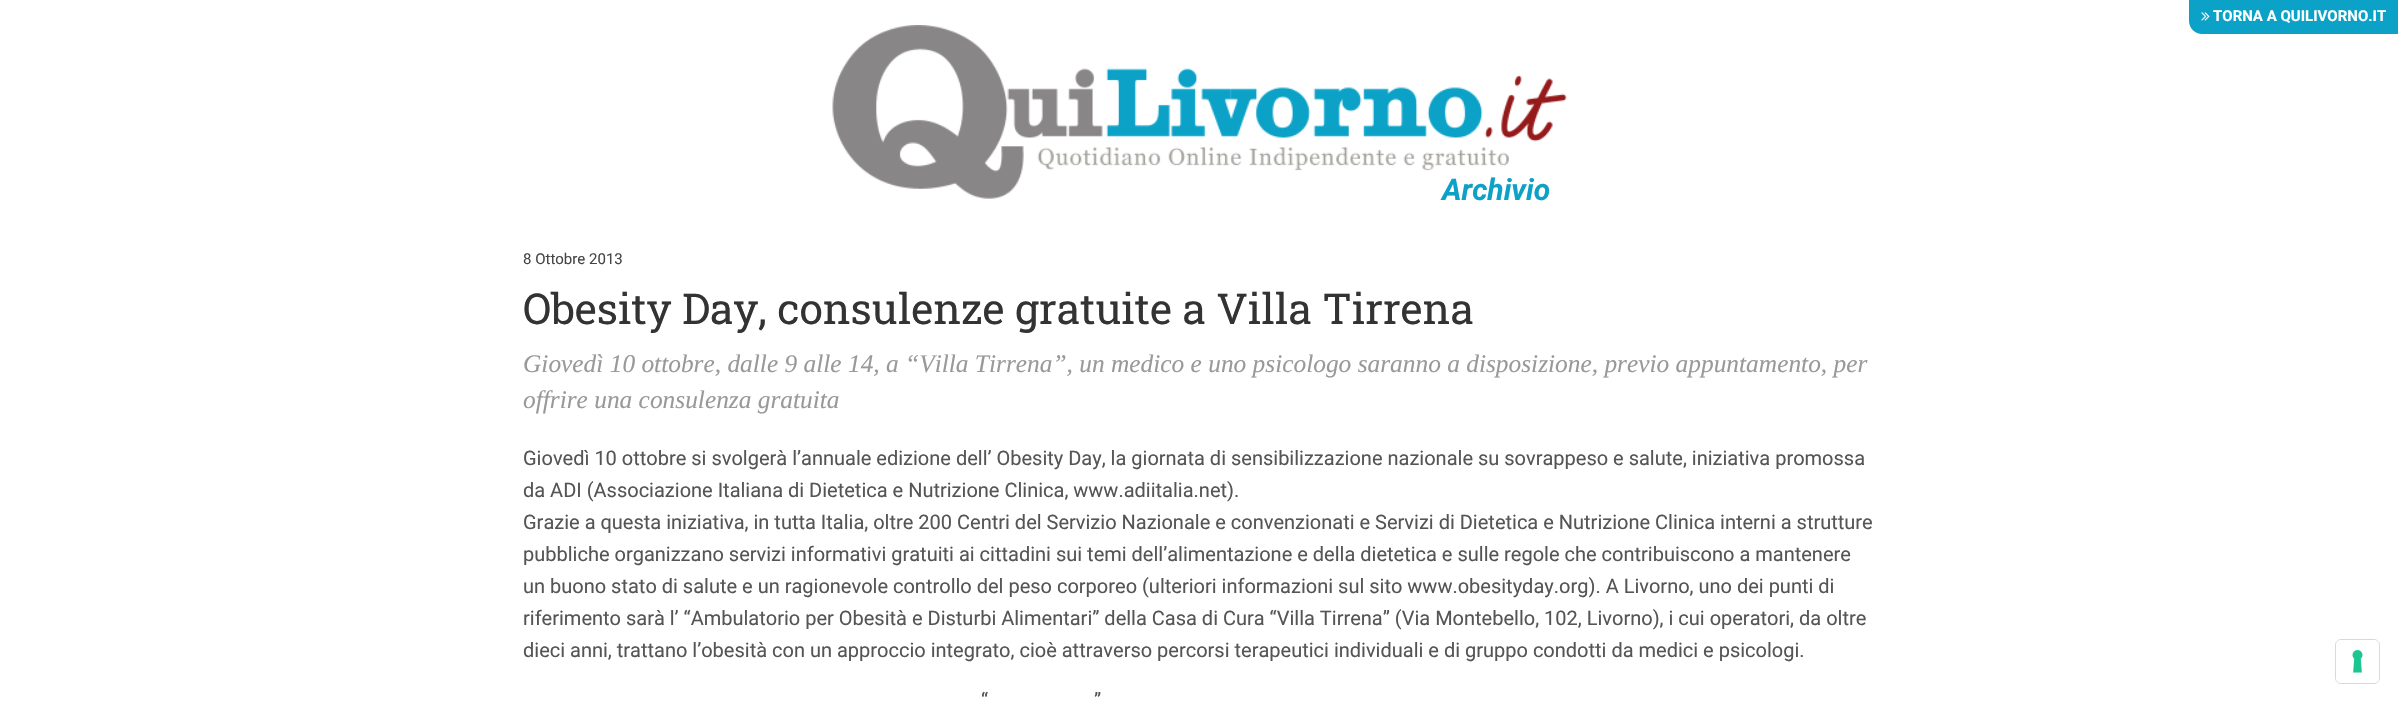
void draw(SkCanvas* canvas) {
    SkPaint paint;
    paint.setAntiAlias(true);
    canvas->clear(0xFFFFFFFF);
    paint.setColor(0xFF0CA2C8);
    canvas->drawPath(SkPathBuilder().moveTo(2189, 0).lineTo(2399, 0).lineTo(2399, 34).lineTo(2202, 34).cubicTo(2195, 34, 2189, 28, 2189, 21).close().detach(), paint);
    canvas->drawImageRect(SkImages::DeferredFromEncodedData(SkData::MakeFromFileName("img1.png")), SkRect::MakeXYWH(2201, 12, 9, 9), SkSamplingOptions());
    SkFont font1(fontMgr->matchFamilyStyle("Roboto", SkFontStyle::Bold()), 15);
    font1.setSubpixel(true);
    paint.setColor(0xFFFFFFFF);
    canvas->drawString("TORNA A QUILIVORNO.IT", 2213, 21, font1, paint);
    canvas->drawImageRect(SkImages::DeferredFromEncodedData(SkData::MakeFromFileName("img2.png")), SkRect::MakeXYWH(832, 25, 735, 174), SkSamplingOptions());
    SkFont font2(fontMgr->matchFamilyStyle("Roboto", SkFontStyle::BoldItalic()), 30);
    font2.setSubpixel(true);
    paint.setColor(0xFF0CA2C8);
    canvas->drawString("Archivio", 1442, 200, font2, paint);
    SkFont font3(fontMgr->matchFamilyStyle("Roboto", SkFontStyle::Normal()), 15);
    font3.setSubpixel(true);
    paint.setColor(0xFF444444);
    canvas->drawString("8 Ottobre 2013", 523, 264, font3, paint);
    SkFont font4(fontMgr->matchFamilyStyle("Roboto Slab", SkFontStyle::Normal()), 42.5f);
    font4.setSubpixel(true);
    paint.setColor(0xFF333333);
    canvas->drawString("Obesity Day, consulenze gratuite a Villa Tirrena", 523, 324, font4, paint);
    SkFont font5(fontMgr->matchFamilyStyle("Liberation Serif", SkFontStyle::Italic()), 25.38f);
    font5.setSubpixel(true);
    paint.setColor(0xFF999999);
    canvas->drawString("Giovedì 10 ottobre, dalle 9 alle 14, a “Villa Tirrena”, un medico e uno psicologo saranno a disposizione, previo appuntamento, per", 523, 372, font5, paint);
    canvas->drawString("offrire una consulenza gratuita", 523, 408, font5, paint);
    SkFont font6(fontMgr->matchFamilyStyle("Roboto", SkFontStyle::Normal()), 20);
    font6.setSubpixel(true);
    paint.setColor(0xFF555555);
    canvas->drawString("Giovedì 10 ottobre si svolgerà l’annuale edizione dell’ Obesity Day, la giornata di sensibilizzazione nazionale su sovrappeso e salute, iniziativa promossa", 523, 465, font6, paint);
    canvas->drawString("da ADI (Associazione Italiana di Dietetica e Nutrizione Clinica, www.adiitalia.net).", 523, 497, font6, paint);
    canvas->drawString("Grazie a questa iniziativa, in tutta Italia, oltre 200 Centri del Servizio Nazionale e convenzionati e Servizi di Dietetica e Nutrizione Clinica interni a strutture", 523, 529, font6, paint);
    canvas->drawString("pubbliche organizzano servizi informativi gratuiti ai cittadini sui temi dell’alimentazione e della dietetica e sulle regole che contribuiscono a mantenere", 523, 561, font6, paint);
    canvas->drawString("un buono stato di salute e un ragionevole controllo del peso corporeo (ulteriori informazioni sul sito www.obesityday.org). A Livorno, uno dei punti di", 523, 593, font6, paint);
    canvas->drawString("riferimento sarà l’ “Ambulatorio per Obesità e Disturbi Alimentari” della Casa di Cura “Villa Tirrena” (Via Montebello, 102, Livorno), i cui operatori, da oltre", 523, 625, font6, paint);
    canvas->drawString("dieci anni, trattano l’obesità con un approccio integrato, cioè attraverso percorsi terapeutici individuali e di gruppo condotti da medici e psicologi.", 523, 657, font6, paint);
    canvas->drawString("“", 981, 707, font6, paint);
    canvas->drawString("”", 1094, 707, font6, paint);
    paint.setStyle(SkPaint::kStroke_Style);
    paint.setStrokeWidth(1);
    paint.setColor(0xFFD9D9D9);
    canvas->drawRoundRect(SkRect::MakeXYWH(2335.5f, 639.5f, 44, 44), 5.5f, 5.5f, paint);
    paint.setStyle(SkPaint::kFill_Style);
    paint.setColor(0xFFFFFFFF);
    canvas->drawRoundRect(SkRect::MakeXYWH(2336, 640, 43, 43), 5, 5, paint);
    canvas->drawImageRect(SkImages::DeferredFromEncodedData(SkData::MakeFromFileName("img3.png")), SkRect::MakeXYWH(2352, 650, 11, 23), SkSamplingOptions());
}
